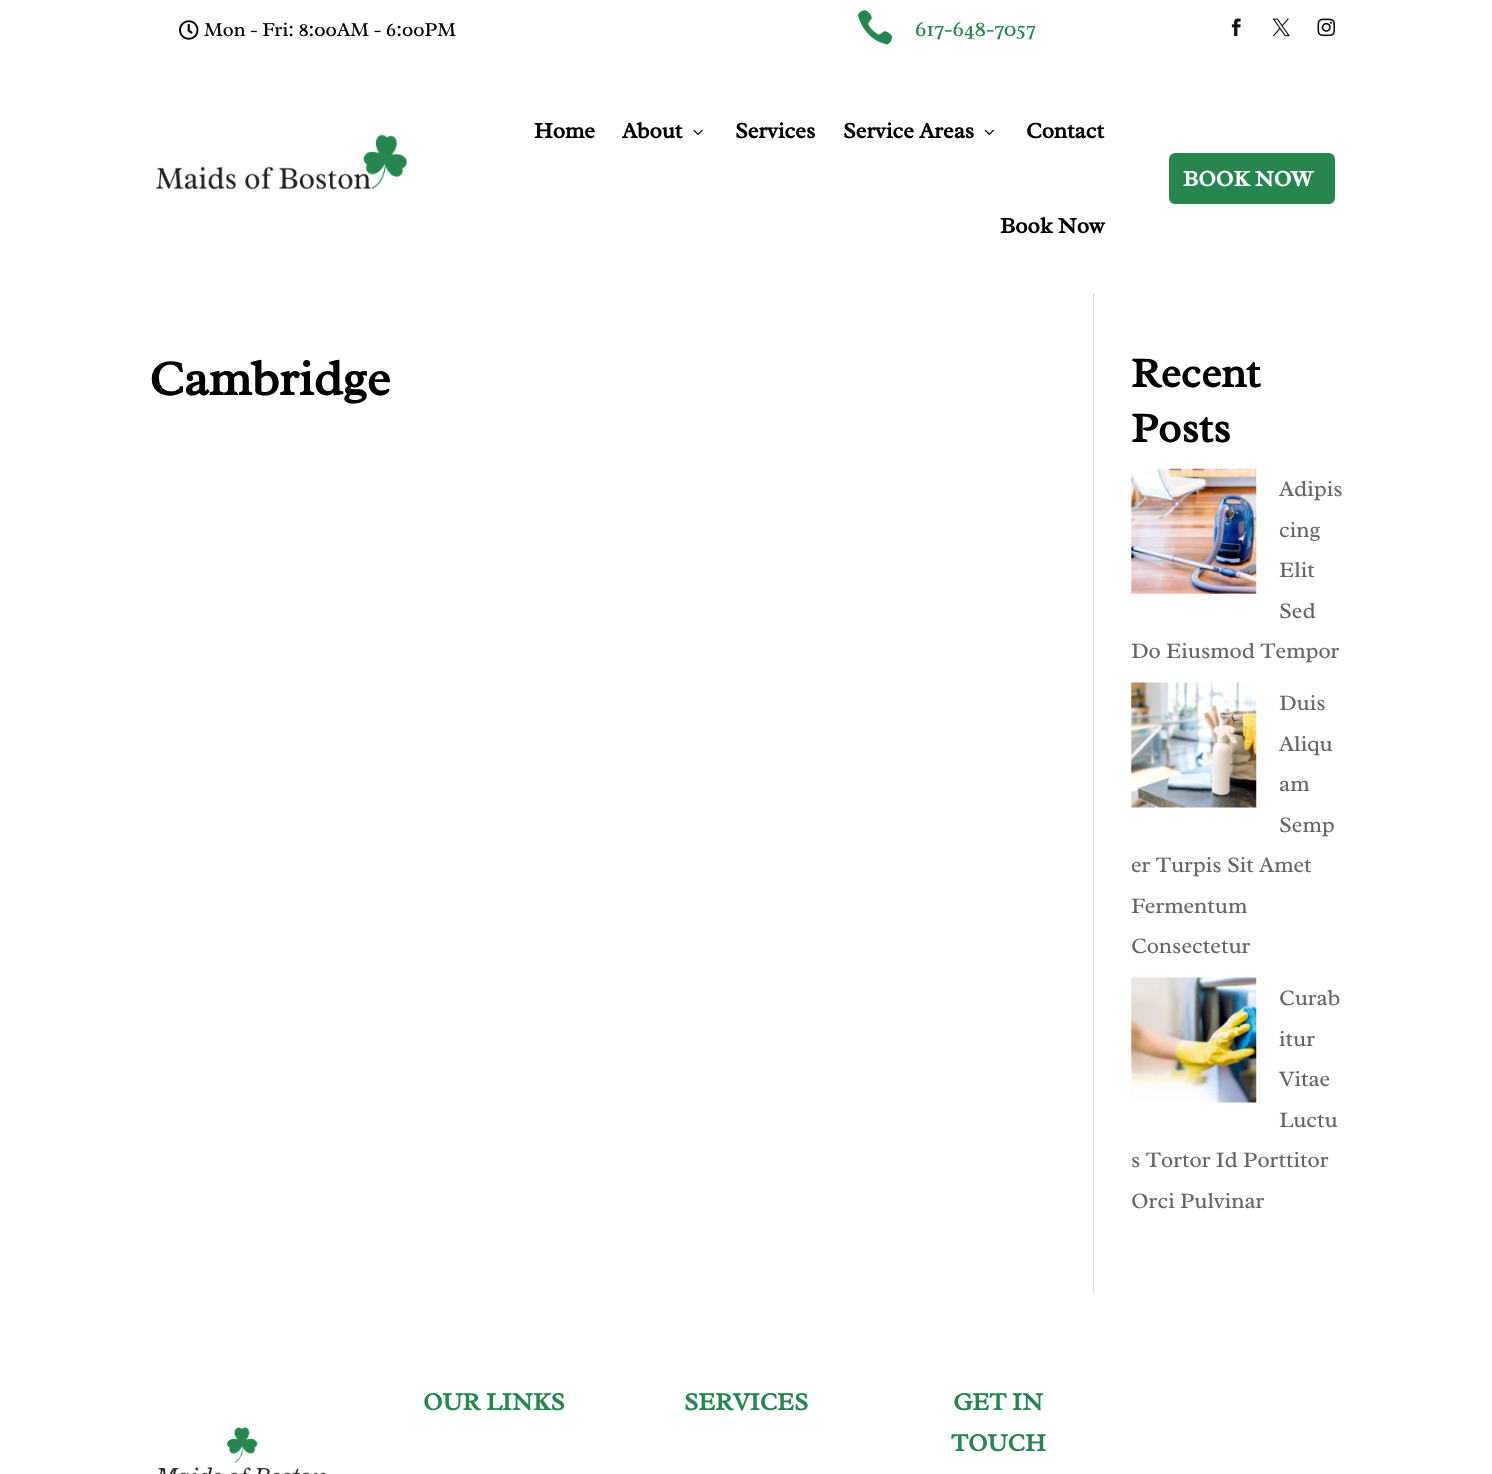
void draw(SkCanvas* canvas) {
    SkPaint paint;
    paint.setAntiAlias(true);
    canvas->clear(0xFFFFFFFF);
    canvas->drawImageRect(SkImages::DeferredFromEncodedData(SkData::MakeFromFileName("img1.png")), SkRect::MakeXYWH(179, 20, 20, 20), SkSamplingOptions());
    SkFont font1(fontMgr->matchFamilyStyle("Radley", SkFontStyle::Normal()), 20);
    font1.setSubpixel(true);
    paint.setColor(0xFF000000);
    canvas->drawString("Mon - Fri: 8:00AM - 6:00PM", 204, 36, font1, paint);
    canvas->drawImageRect(SkImages::DeferredFromEncodedData(SkData::MakeFromFileName("img2.png")), SkRect::MakeXYWH(857, 10, 36, 35), SkSamplingOptions());
    SkFont font2(fontMgr->matchFamilyStyle("Radley", SkFontStyle::Normal()), 22.5f);
    font2.setSubpixel(true);
    paint.setColor(0xFF27864F);
    canvas->drawString("617-648-7057", 915, 36, font2, paint);
    canvas->drawImageRect(SkImages::DeferredFromEncodedData(SkData::MakeFromFileName("img3.png")), SkRect::MakeXYWH(1231, 18, 10, 19), SkSamplingOptions());
    canvas->drawImageRect(SkImages::DeferredFromEncodedData(SkData::MakeFromFileName("img4.png")), SkRect::MakeXYWH(1272, 18, 18, 19), SkSamplingOptions());
    canvas->drawImageRect(SkImages::DeferredFromEncodedData(SkData::MakeFromFileName("img5.png")), SkRect::MakeXYWH(1317, 18, 18, 19), SkSamplingOptions());
    canvas->drawImageRect(SkImages::DeferredFromEncodedData(SkData::MakeFromFileName("img6.png")), SkRect::MakeXYWH(156, 134, 251, 56), SkSamplingOptions());
    SkFont font3(fontMgr->matchFamilyStyle("Radley", SkFontStyle::Bold()), 22.5f);
    font3.setSubpixel(true);
    paint.setColor(0xFF000000);
    canvas->drawString("Home", 534, 138, font3, paint);
    canvas->drawString("About", 622, 138, font3, paint);
    canvas->drawImageRect(SkImages::DeferredFromEncodedData(SkData::MakeFromFileName("img7.png")), SkRect::MakeXYWH(693, 129, 10, 6), SkSamplingOptions());
    canvas->drawString("Services", 735, 138, font3, paint);
    canvas->drawString("Service Areas", 843, 138, font3, paint);
    canvas->drawImageRect(SkImages::DeferredFromEncodedData(SkData::MakeFromFileName("img8.png")), SkRect::MakeXYWH(984, 129, 10, 6), SkSamplingOptions());
    canvas->drawString("Contact", 1026, 138, font3, paint);
    canvas->drawString("Book Now", 1000, 233, font3, paint);
    paint.setColor(0xFF27864F);
    canvas->drawRoundRect(SkRect::MakeXYWH(1169, 153, 166, 51), 6, 6, paint);
    paint.setColor(0xFFFFFFFF);
    canvas->drawString("BOOK NOW", 1183, 186, font3, paint);
    paint.setColor(0xFFE2E2E2);
    canvas->drawRect(SkRect::MakeXYWH(1093, 293, 1, 1000), paint);
    SkFont font4(fontMgr->matchFamilyStyle("Radley", SkFontStyle::Bold()), 50);
    font4.setSubpixel(true);
    paint.setColor(0xFF000000);
    canvas->drawString("Cambridge", 149, 395, font4, paint);
    SkFont font5(fontMgr->matchFamilyStyle("Radley", SkFontStyle::Bold()), 42.5f);
    font5.setSubpixel(true);
    canvas->drawString("Recent", 1131, 387, font5, paint);
    canvas->drawString("Posts", 1131, 442, font5, paint);
    canvas->drawImageRect(SkImages::DeferredFromEncodedData(SkData::MakeFromFileName("img9.png")), SkRect::MakeXYWH(1131, 468, 126, 126), SkSamplingOptions());
    paint.setColor(0xFF666666);
    canvas->drawString("Adipis", 1279, 496, font2, paint);
    canvas->drawString("cing", 1279, 537, font2, paint);
    canvas->drawString("Elit", 1279, 577, font2, paint);
    canvas->drawString("Sed", 1279, 618, font2, paint);
    canvas->drawString("Do Eiusmod Tempor", 1131, 658, font2, paint);
    canvas->drawImageRect(SkImages::DeferredFromEncodedData(SkData::MakeFromFileName("img10.png")), SkRect::MakeXYWH(1131, 682, 126, 126), SkSamplingOptions());
    canvas->drawString("Duis", 1279, 710, font2, paint);
    canvas->drawString("Aliqu", 1279, 751, font2, paint);
    canvas->drawString("am", 1279, 791, font2, paint);
    canvas->drawString("Semp", 1279, 832, font2, paint);
    canvas->drawString("er Turpis Sit Amet", 1131, 872, font2, paint);
    canvas->drawString("Fermentum", 1131, 913, font2, paint);
    canvas->drawString("Consectetur", 1131, 953, font2, paint);
    canvas->drawImageRect(SkImages::DeferredFromEncodedData(SkData::MakeFromFileName("img11.png")), SkRect::MakeXYWH(1131, 977, 126, 126), SkSamplingOptions());
    canvas->drawString("Curab", 1279, 1005, font2, paint);
    canvas->drawString("itur", 1279, 1046, font2, paint);
    canvas->drawString("Vitae", 1279, 1086, font2, paint);
    canvas->drawString("Luctu", 1279, 1127, font2, paint);
    canvas->drawString("s Tortor Id Porttitor", 1131, 1167, font2, paint);
    canvas->drawString("Orci Pulvinar", 1131, 1208, font2, paint);
    canvas->drawImageRect(SkImages::DeferredFromEncodedData(SkData::MakeFromFileName("img12.png")), SkRect::MakeXYWH(158, 1427, 168, 47), SkSamplingOptions());
    SkFont font6(fontMgr->matchFamilyStyle("Radley", SkFontStyle::Bold()), 25);
    font6.setSubpixel(true);
    paint.setColor(0xFF27864F);
    canvas->drawString("OUR LINKS", 423, 1410, font6, paint);
    canvas->drawString("SERVICES", 684, 1410, font6, paint);
    canvas->drawString("GET IN", 953, 1410, font6, paint);
    canvas->drawString("TOUCH", 951, 1451, font6, paint);
}
